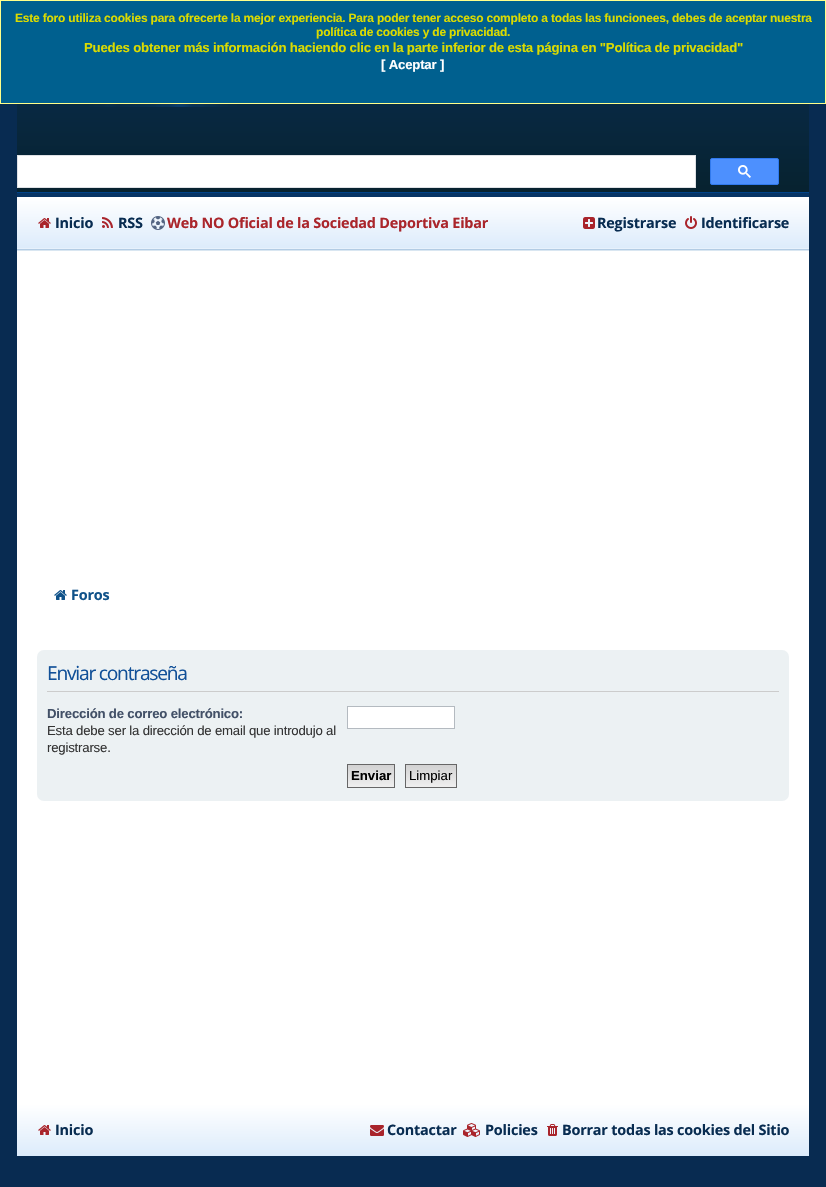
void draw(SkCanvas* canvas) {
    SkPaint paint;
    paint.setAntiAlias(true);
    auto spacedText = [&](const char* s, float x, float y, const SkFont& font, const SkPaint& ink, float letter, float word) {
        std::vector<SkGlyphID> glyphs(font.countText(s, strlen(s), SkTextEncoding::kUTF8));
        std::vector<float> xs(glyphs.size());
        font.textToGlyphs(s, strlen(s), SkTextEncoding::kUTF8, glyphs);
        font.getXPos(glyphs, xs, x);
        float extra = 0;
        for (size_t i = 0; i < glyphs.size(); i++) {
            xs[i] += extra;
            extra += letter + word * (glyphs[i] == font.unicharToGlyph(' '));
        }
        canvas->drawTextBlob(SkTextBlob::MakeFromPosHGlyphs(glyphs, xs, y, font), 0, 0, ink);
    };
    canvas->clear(0xFF082B51);
    paint.setColor(0xFFFFFFFF);
    canvas->drawRect(SkRect::MakeXYWH(17, 251, 792, 853), paint);
    paint.setColor(0xFF00608F);
    canvas->drawRect(SkRect::MakeXYWH(0.5f, 0.5f, 825, 103), paint);
    paint.setStyle(SkPaint::kStroke_Style);
    paint.setStrokeWidth(1);
    paint.setColor(0xFFFFFF8A);
    canvas->drawRect(SkRect::MakeXYWH(0.5f, 0.5f, 825, 103), paint);
    SkFont font1(fontMgr->matchFamilyStyle("Liberation Sans", SkFontStyle::Bold()), 12);
    font1.setSubpixel(true);
    paint.setStyle(SkPaint::kFill_Style);
    paint.setColor(0xFFDBDB00);
    spacedText("Este foro utiliza cookies para ofrecerte la mejor experiencia. Para poder tener acceso completo a todas las funcionees, debes de aceptar nuestra", 15, 22, font1, paint, -0.2f, 0);
    spacedText("política de cookies y de privacidad.", 316, 36, font1, paint, -0.2f, 0);
    SkFont font2(fontMgr->matchFamilyStyle("Liberation Sans", SkFontStyle::Bold()), 13.2f);
    font2.setSubpixel(true);
    spacedText("Puedes obtener más información haciendo clic en la parte inferior de esta página en \"Política de privacidad\"", 84, 52, font2, paint, -0.2f, 0);
    paint.setColor(0xFFFFFFFF);
    spacedText("[ Aceptar ]", 381, 69, font2, paint, -0.2f, 0);
    {
        const SkColor colors[] = {0xFF093058, 0xFF07222F};
        const float stops[] = {0, 1};
        const SkPoint ends[] = {{413, 8}, {413, 192}};
        paint.setShader(SkGradientShader::MakeLinear(ends, colors, stops, 2, SkTileMode::kClamp));
        paint.setAlpha(255);
    }
    canvas->drawRect(SkRect::MakeXYWH(17, 104, 792, 88), paint);
    paint.setShader(nullptr);
    paint.setColor(0xFF004389);
    canvas->drawRect(SkRect::MakeXYWH(17, 192, 792, 1), paint);
    canvas->drawImageRect(SkImages::DeferredFromEncodedData(SkData::MakeFromFileName("img1.png")), SkRect::MakeXYWH(89, 104, 148, 3), SkSamplingOptions());
    paint.setColor(0xFFFFFFFF);
    canvas->drawRect(SkRect::MakeXYWH(17.5f, 155.5f, 678, 32), paint);
    paint.setStyle(SkPaint::kStroke_Style);
    paint.setColor(0xFFDFE1E5);
    canvas->drawRect(SkRect::MakeXYWH(17.5f, 155.5f, 678, 32), paint);
    paint.setStyle(SkPaint::kFill_Style);
    paint.setColor(0xFF4D90FE);
    canvas->drawRoundRect(SkRect::MakeXYWH(710.5f, 158.5f, 68, 26), 1.5f, 1.5f, paint);
    paint.setStyle(SkPaint::kStroke_Style);
    paint.setColor(0xFF3079ED);
    canvas->drawRoundRect(SkRect::MakeXYWH(710.5f, 158.5f, 68, 26), 1.5f, 1.5f, paint);
    canvas->drawImageRect(SkImages::DeferredFromEncodedData(SkData::MakeFromFileName("img2.png")), SkRect::MakeXYWH(738, 165, 13, 13), SkSamplingOptions());
    paint.setStyle(SkPaint::kFill_Style);
    paint.setColor(0xFFD9E6F1);
    canvas->drawRect(SkRect::MakeXYWH(17, 250, 792, 1), paint);
    {
        const SkColor colors[] = {0xFFDCEBFB, 0xFFFFFFFF};
        const float stops[] = {0, 1};
        const SkPoint ends[] = {{413, 249}, {413, 197}};
        paint.setShader(SkGradientShader::MakeLinear(ends, colors, stops, 2, SkTileMode::kClamp));
        paint.setAlpha(255);
    }
    canvas->drawRect(SkRect::MakeXYWH(17, 197, 792, 51), paint);
    paint.setShader(nullptr);
    paint.setColor(0xFFE7F1FC);
    canvas->drawRect(SkRect::MakeXYWH(17, 248, 792, 1), paint);
    paint.setColor(0xFF063465);
    canvas->drawRect(SkRect::MakeXYWH(17, 193, 792, 4), paint);
    paint.setColor(0xFFB3CCE4);
    canvas->drawRect(SkRect::MakeXYWH(17, 249, 792, 1), paint);
    canvas->drawImageRect(SkImages::DeferredFromEncodedData(SkData::MakeFromFileName("img3.png")), SkRect::MakeXYWH(38, 218, 13, 10), SkSamplingOptions());
    SkFont font3(fontMgr->matchFamilyStyle("Open Sans", SkFontStyle::Bold()), 14.4f);
    font3.setSubpixel(true);
    paint.setColor(0xFF082C51);
    spacedText("Inicio", 55, 228, font3, paint, -0.2f, 0);
    canvas->drawImageRect(SkImages::DeferredFromEncodedData(SkData::MakeFromFileName("img4.png")), SkRect::MakeXYWH(102, 217, 11, 11), SkSamplingOptions());
    spacedText("RSS", 118, 228, font3, paint, -0.2f, 0);
    canvas->drawImageRect(SkImages::DeferredFromEncodedData(SkData::MakeFromFileName("img5.png")), SkRect::MakeXYWH(151, 216, 14, 14), SkSamplingOptions());
    paint.setColor(0xFFAA252B);
    spacedText("Web NO Oficial de la Sociedad Deportiva Eibar", 167, 228, font3, paint, -0.2f, 0);
    canvas->drawImageRect(SkImages::DeferredFromEncodedData(SkData::MakeFromFileName("img6.png")), SkRect::MakeXYWH(583, 217, 12, 12), SkSamplingOptions());
    paint.setColor(0xFF082C51);
    spacedText("Registrarse", 597, 228, font3, paint, -0.2f, 0);
    canvas->drawImageRect(SkImages::DeferredFromEncodedData(SkData::MakeFromFileName("img7.png")), SkRect::MakeXYWH(685, 216, 12, 13), SkSamplingOptions());
    spacedText("Identificarse", 701, 228, font3, paint, -0.2f, 0);
    canvas->drawImageRect(SkImages::DeferredFromEncodedData(SkData::MakeFromFileName("img8.png")), SkRect::MakeXYWH(54, 590, 13, 10), SkSamplingOptions());
    paint.setColor(0xFF105289);
    spacedText("Foros", 71, 600, font3, paint, -0.2f, 0);
    paint.setColor(0xFFECF1F3);
    canvas->drawRoundRect(SkRect::MakeXYWH(37, 650, 752, 151), 7, 7, paint);
    paint.setColor(0xFFCCCCCC);
    canvas->drawRect(SkRect::MakeXYWH(47, 691, 732, 1), paint);
    SkFont font4(fontMgr->matchFamilyStyle("Open Sans", SkFontStyle::Normal()), 19.25f);
    font4.setSubpixel(true);
    paint.setColor(0xFF115098);
    spacedText("Enviar contraseña", 47, 680, font4, paint, -1.25f, 0);
    paint.setColor(0xFF425067);
    spacedText("Dirección de correo electrónico:", 47, 718, font2, paint, -0.2f, 0);
    SkFont font5(fontMgr->matchFamilyStyle("Liberation Sans", SkFontStyle::Normal()), 13.2f);
    font5.setSubpixel(true);
    paint.setColor(0xFF333333);
    spacedText("Esta debe ser la dirección de email que introdujo al", 47, 735, font5, paint, -0.2f, 0);
    spacedText("registrarse.", 47, 752, font5, paint, -0.2f, 0);
    paint.setColor(0xFFFFFFFF);
    canvas->drawRect(SkRect::MakeXYWH(347.5f, 706.5f, 107, 22), paint);
    paint.setStyle(SkPaint::kStroke_Style);
    paint.setColor(0xFFB4BAC0);
    canvas->drawRect(SkRect::MakeXYWH(347.5f, 706.5f, 107, 22), paint);
    paint.setStyle(SkPaint::kFill_Style);
    {
        const SkColor colors[] = {0xFFD2D2D2, 0xFFEFEFEF};
        const float stops[] = {0, 1};
        const SkPoint ends[] = {{371, 765}, {371, 787}};
        paint.setShader(SkGradientShader::MakeLinear(ends, colors, stops, 2, SkTileMode::kClamp));
        paint.setAlpha(255);
    }
    canvas->drawRect(SkRect::MakeXYWH(348, 765, 46, 22), paint);
    paint.setStyle(SkPaint::kStroke_Style);
    paint.setShader(nullptr);
    paint.setColor(0xFF666666);
    canvas->drawRect(SkRect::MakeXYWH(347.5f, 764.5f, 47, 23), paint);
    paint.setStyle(SkPaint::kFill_Style);
    paint.setColor(0xFF000000);
    canvas->drawString("Enviar", 351, 780, font2, paint);
    {
        const SkColor colors[] = {0xFFD2D2D2, 0xFFEFEFEF};
        const float stops[] = {0, 1};
        const SkPoint ends[] = {{431, 765}, {431, 787}};
        paint.setShader(SkGradientShader::MakeLinear(ends, colors, stops, 2, SkTileMode::kClamp));
        paint.setAlpha(255);
    }
    canvas->drawRect(SkRect::MakeXYWH(406, 765, 50, 22), paint);
    paint.setStyle(SkPaint::kStroke_Style);
    paint.setShader(nullptr);
    paint.setColor(0xFF666666);
    canvas->drawRect(SkRect::MakeXYWH(405.5f, 764.5f, 51, 23), paint);
    paint.setStyle(SkPaint::kFill_Style);
    paint.setColor(0xFF000000);
    canvas->drawString("Limpiar", 409, 780, font5, paint);
    {
        const SkColor colors[] = {0xFFDCEBFB, 0xFFFFFFFF};
        const float stops[] = {0, 1};
        const SkPoint ends[] = {{413, 1156}, {413, 1104}};
        paint.setShader(SkGradientShader::MakeLinear(ends, colors, stops, 2, SkTileMode::kClamp));
        paint.setAlpha(255);
    }
    canvas->drawRect(SkRect::MakeXYWH(17, 1104, 792, 52), paint);
    canvas->drawImageRect(SkImages::DeferredFromEncodedData(SkData::MakeFromFileName("img3.png")), SkRect::MakeXYWH(38, 1125, 13, 10), SkSamplingOptions());
    paint.setShader(nullptr);
    paint.setColor(0xFF082C51);
    spacedText("Inicio", 55, 1135, font3, paint, -0.2f, 0);
    canvas->drawImageRect(SkImages::DeferredFromEncodedData(SkData::MakeFromFileName("img9.png")), SkRect::MakeXYWH(370, 1125, 14, 11), SkSamplingOptions());
    spacedText("Contactar", 387, 1135, font3, paint, -0.2f, 0);
    canvas->drawImageRect(SkImages::DeferredFromEncodedData(SkData::MakeFromFileName("img10.png")), SkRect::MakeXYWH(463, 1123, 17, 14), SkSamplingOptions());
    spacedText("Policies", 485, 1135, font3, paint, -0.2f, 0);
    canvas->drawImageRect(SkImages::DeferredFromEncodedData(SkData::MakeFromFileName("img11.png")), SkRect::MakeXYWH(547, 1124, 11, 12), SkSamplingOptions());
    spacedText("Borrar todas las cookies del Sitio", 562, 1135, font3, paint, -0.2f, 0);
}
